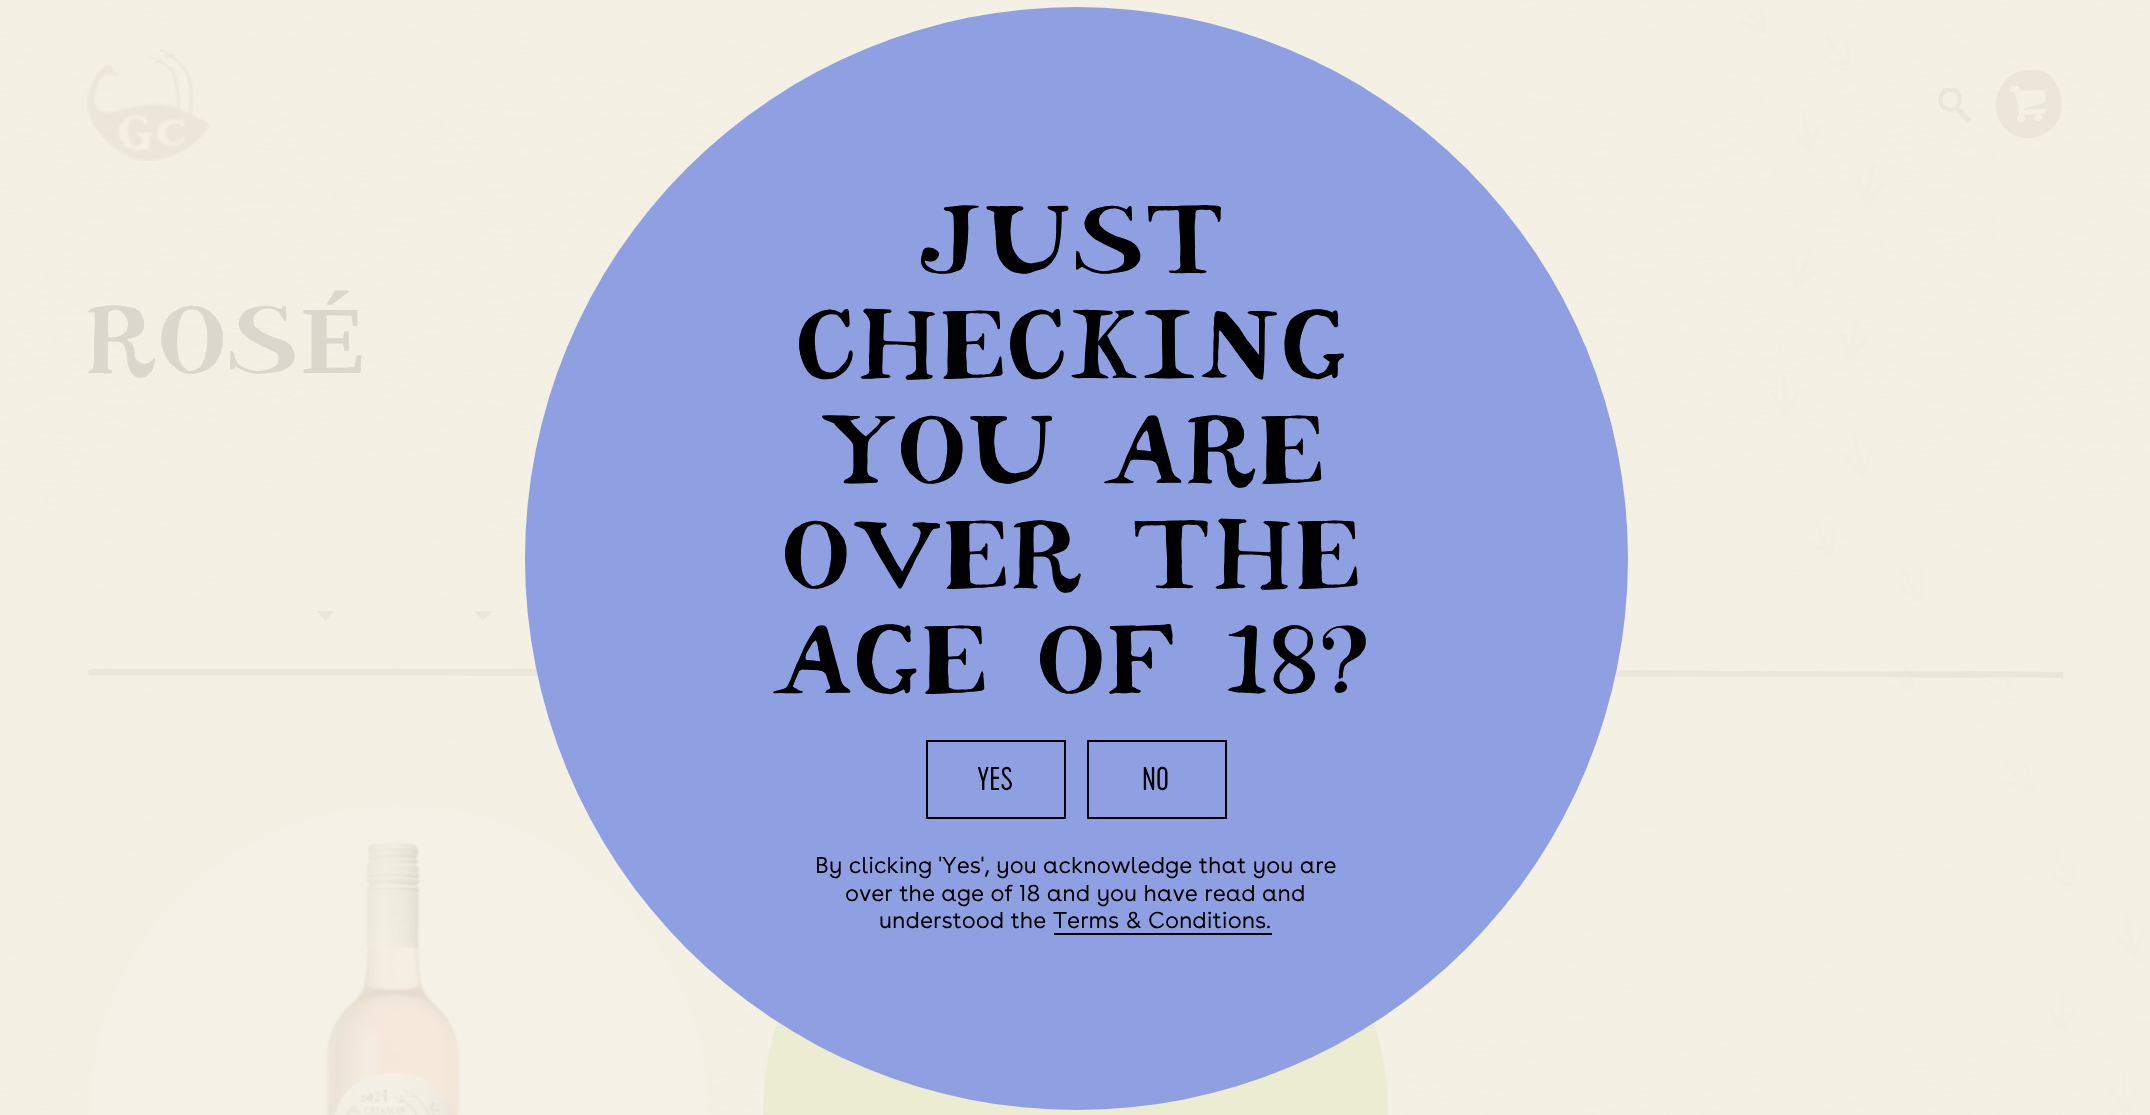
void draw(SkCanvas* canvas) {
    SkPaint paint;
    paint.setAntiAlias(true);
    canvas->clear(0xFFFFFFFF);
    canvas->drawImageRect(SkImages::DeferredFromEncodedData(SkData::MakeFromFileName("img1.png")), SkRect::MakeXYWH(0, 0, 2150, 1115), SkSamplingOptions());
    canvas->drawImageRect(SkImages::DeferredFromEncodedData(SkData::MakeFromFileName("img2.png")), SkRect::MakeXYWH(87, 49, 123, 112), SkSamplingOptions());
    canvas->drawImageRect(SkImages::DeferredFromEncodedData(SkData::MakeFromFileName("img3.png")), SkRect::MakeXYWH(1938, 88, 34, 35), SkSamplingOptions());
    canvas->drawImageRect(SkImages::DeferredFromEncodedData(SkData::MakeFromFileName("img4.png")), SkRect::MakeXYWH(1995, 70, 67, 68), SkSamplingOptions());
    SkFont font1(fontMgr->matchFamilyStyle("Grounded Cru", SkFontStyle::Bold()), 96.25f);
    font1.setSubpixel(true);
    paint.setColor(0xFFDCD7CC);
    canvas->drawString("ROS", 88, 373, font1, paint);
    SkFont font2(fontMgr->matchFamilyStyle("Liberation Serif", SkFontStyle::Bold()), 96.25f);
    font2.setSubpixel(true);
    canvas->drawString("É", 302, 373, font2, paint);
    paint.setColor(0xFFECE5D9);
    canvas->drawPath(SkPathBuilder(SkPathFillType::kEvenOdd).moveTo(325.5f, 621).lineTo(317, 611).lineTo(334.5f, 611).close().detach(), paint);
    canvas->drawPath(SkPathBuilder(SkPathFillType::kEvenOdd).moveTo(483, 621).lineTo(474, 611).lineTo(492, 611).close().detach(), paint);
    canvas->drawImageRect(SkImages::DeferredFromEncodedData(SkData::MakeFromFileName("img5.png")), SkRect::MakeXYWH(88, 669, 1975, 10), SkSamplingOptions());
    paint.setColor(0xFFF5F1E6);
    canvas->drawCircle(399, 1115, 310, paint);
    canvas->drawImageRect(SkImages::DeferredFromEncodedData(SkData::MakeFromFileName("img6.png")), SkRect::MakeXYWH(326, 842, 134, 273), SkSamplingOptions());
    paint.setColor(0xFFECECD2);
    canvas->drawRoundRect(SkRect::MakeXYWH(763, 803, 625, 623), 311.5f, 311.5f, paint);
    paint.setColor(0xFF8FA0E2);
    canvas->drawCircle(1076.5f, 558.5f, 551.5f, paint);
    paint.setColor(0xFF000000);
    canvas->drawString("JUST", 921, 273, font1, paint);
    canvas->drawString("CHECKING", 799, 378, font1, paint);
    canvas->drawString("YOU ARE", 822, 483, font1, paint);
    canvas->drawString("OVER THE", 785, 588, font1, paint);
    canvas->drawString("AGE OF 18?", 777, 693, font1, paint);
    paint.setStyle(SkPaint::kStroke_Style);
    paint.setStrokeWidth(2);
    canvas->drawRect(SkRect::MakeXYWH(927, 741, 138, 77), paint);
    SkFont font3(fontMgr->matchFamilyStyle("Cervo", SkFontStyle::Normal()), 33);
    font3.setSubpixel(true);
    paint.setStyle(SkPaint::kFill_Style);
    canvas->drawString("YES", 977, 790, font3, paint);
    paint.setStyle(SkPaint::kStroke_Style);
    canvas->drawRect(SkRect::MakeXYWH(1088, 741, 138, 77), paint);
    paint.setStyle(SkPaint::kFill_Style);
    canvas->drawString("NO", 1142, 790, font3, paint);
    SkFont font4(fontMgr->matchFamilyStyle("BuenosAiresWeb", SkFontStyle(300, SkFontStyle::kNormal_Width, SkFontStyle::kUpright_Slant)), 22.75f);
    font4.setSubpixel(true);
    canvas->drawString("By clicking 'Yes', you acknowledge that you are", 815, 873, font4, paint);
    canvas->drawString("over the age of 18 and you have read and", 845, 901, font4, paint);
    canvas->drawString("understood the Terms & Conditions.", 879, 928, font4, paint);
    canvas->drawRect(SkRect::MakeXYWH(1054, 933, 218, 2), paint);
}
